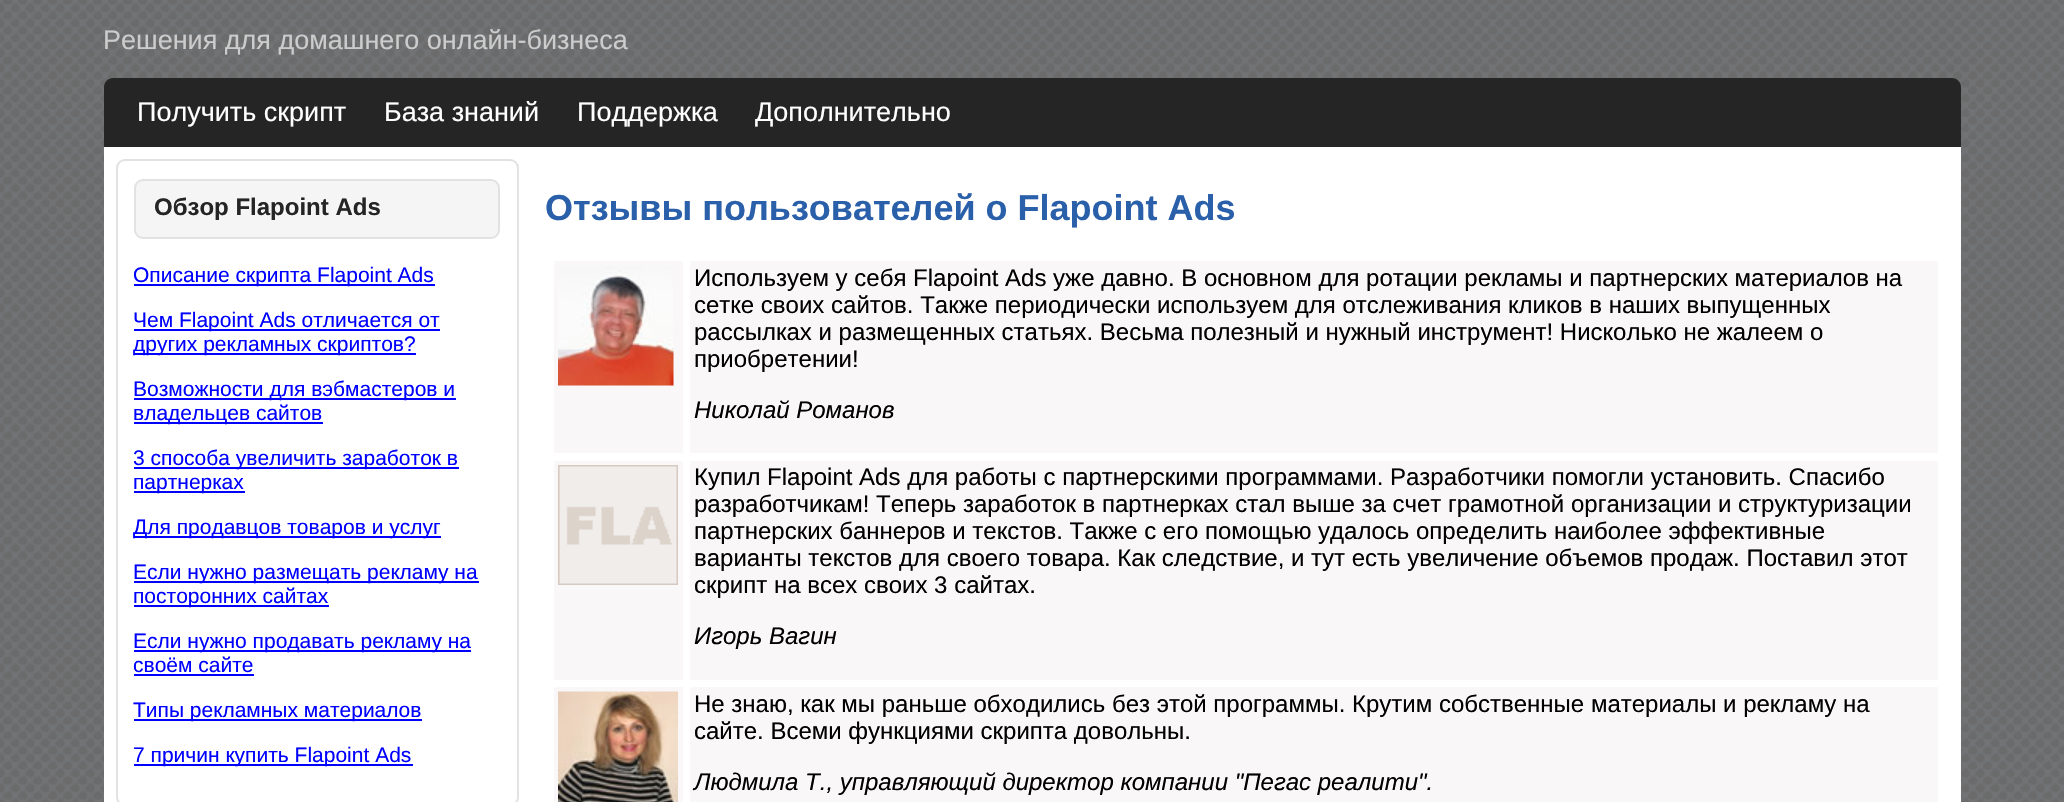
void draw(SkCanvas* canvas) {
    SkPaint paint;
    paint.setAntiAlias(true);
    canvas->clear(0xFFFFFFFF);
    canvas->drawImageRect(SkImages::DeferredFromEncodedData(SkData::MakeFromFileName("img1.png")), SkRect::MakeXYWH(0, 0, 2064, 802), SkSamplingOptions());
    SkFont font1(fontMgr->matchFamilyStyle("Liberation Sans", SkFontStyle::Normal()), 27);
    font1.setSubpixel(true);
    paint.setColor(0xFFCCCCCC);
    canvas->drawString("Решения для домашнего онлайн-бизнеса", 103, 49, font1, paint);
    paint.setColor(0xFF252525);
    canvas->drawPath(SkPathBuilder().moveTo(113, 78).lineTo(1952, 78).cubicTo(1957, 78, 1961, 82, 1961, 87).lineTo(1961, 147).lineTo(104, 147).lineTo(104, 87).cubicTo(104, 82, 108, 78, 113, 78).close().detach(), paint);
    paint.setColor(0xFFFFFFFF);
    canvas->drawString("Получить скрипт", 137, 121, font1, paint);
    canvas->drawString("База знаний", 384, 121, font1, paint);
    canvas->drawString("Поддержка", 577, 121, font1, paint);
    canvas->drawString("Дополнительно", 755, 121, font1, paint);
    canvas->drawRect(SkRect::MakeXYWH(104, 147, 1857, 655), paint);
    paint.setStyle(SkPaint::kStroke_Style);
    paint.setStrokeWidth(2);
    paint.setColor(0xFFE2E2E2);
    canvas->drawRoundRect(SkRect::MakeXYWH(117, 160, 401, 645), 8, 8, paint);
    paint.setStyle(SkPaint::kFill_Style);
    paint.setColor(0xFFF5F5F5);
    canvas->drawRoundRect(SkRect::MakeXYWH(135, 180, 364, 58), 8, 8, paint);
    paint.setStyle(SkPaint::kStroke_Style);
    paint.setColor(0xFFE2E2E2);
    canvas->drawRoundRect(SkRect::MakeXYWH(135, 180, 364, 58), 8, 8, paint);
    SkFont font2(fontMgr->matchFamilyStyle("Liberation Sans", SkFontStyle::Bold()), 24);
    font2.setSubpixel(true);
    paint.setStyle(SkPaint::kFill_Style);
    paint.setColor(0xFF252525);
    canvas->drawString("Обзор Flapoint Ads", 154, 215, font2, paint);
    paint.setColor(0xFF0000FF);
    canvas->drawRect(SkRect::MakeXYWH(134, 284, 301, 2), paint);
    SkFont font3(fontMgr->matchFamilyStyle("Liberation Sans", SkFontStyle::Normal()), 21);
    font3.setSubpixel(true);
    canvas->drawString("Описание скрипта Flapoint Ads", 133, 282, font3, paint);
    canvas->drawRect(SkRect::MakeXYWH(134, 329, 306, 2), paint);
    canvas->drawString("Чем Flapoint Ads отличается от", 133, 327, font3, paint);
    canvas->drawRect(SkRect::MakeXYWH(134, 353, 282, 2), paint);
    canvas->drawString("других рекламных скриптов?", 133, 351, font3, paint);
    canvas->drawRect(SkRect::MakeXYWH(134, 398, 322, 2), paint);
    canvas->drawString("Возможности для вэбмастеров и", 133, 396, font3, paint);
    canvas->drawRect(SkRect::MakeXYWH(134, 422, 189, 2), paint);
    canvas->drawString("владельцев сайтов", 133, 420, font3, paint);
    canvas->drawRect(SkRect::MakeXYWH(134, 467, 325, 2), paint);
    canvas->drawString("3 способа увеличить заработок в", 133, 465, font3, paint);
    canvas->drawRect(SkRect::MakeXYWH(134, 491, 111, 2), paint);
    canvas->drawString("партнерках", 133, 489, font3, paint);
    canvas->drawRect(SkRect::MakeXYWH(134, 536, 307, 2), paint);
    canvas->drawString("Для продавцов товаров и услуг", 133, 534, font3, paint);
    canvas->drawRect(SkRect::MakeXYWH(134, 581, 345, 2), paint);
    canvas->drawString("Если нужно размещать рекламу на", 133, 579, font3, paint);
    canvas->drawRect(SkRect::MakeXYWH(134, 605, 195, 2), paint);
    canvas->drawString("посторонних сайтах", 133, 603, font3, paint);
    canvas->drawRect(SkRect::MakeXYWH(134, 650, 337, 2), paint);
    canvas->drawString("Если нужно продавать рекламу на", 133, 648, font3, paint);
    canvas->drawString("своём сайте", 133, 672, font3, paint);
    canvas->drawRect(SkRect::MakeXYWH(134, 674, 120, 2), paint);
    canvas->drawRect(SkRect::MakeXYWH(134, 719, 288, 2), paint);
    canvas->drawString("Типы рекламных материалов", 133, 717, font3, paint);
    canvas->drawRect(SkRect::MakeXYWH(134, 764, 279, 2), paint);
    canvas->drawString("7 причин купить Flapoint Ads", 133, 762, font3, paint);
    SkFont font4(fontMgr->matchFamilyStyle("Liberation Sans", SkFontStyle::Bold()), 36);
    font4.setSubpixel(true);
    paint.setColor(0xFF2A5FAA);
    canvas->drawString("Отзывы пользователей о Flapoint Ads", 545, 220, font4, paint);
    paint.setColor(0xFFF9F7F7);
    canvas->drawRect(SkRect::MakeXYWH(554, 261, 129, 192), paint);
    canvas->drawImageRect(SkImages::DeferredFromEncodedData(SkData::MakeFromFileName("img2.png")), SkRect::MakeXYWH(558, 266, 116, 120), SkSamplingOptions());
    canvas->drawRect(SkRect::MakeXYWH(690, 261, 1248, 192), paint);
    SkFont font5(fontMgr->matchFamilyStyle("Liberation Sans", SkFontStyle::Normal()), 24);
    font5.setSubpixel(true);
    paint.setColor(0xFF000000);
    canvas->drawString("Используем у себя Flapoint Ads уже давно. В основном для ротации рекламы и партнерских материалов на", 694, 286, font5, paint);
    canvas->drawString("сетке своих сайтов. Также периодически используем для отслеживания кликов в наших выпущенных", 694, 313, font5, paint);
    canvas->drawString("рассылках и размещенных статьях. Весьма полезный и нужный инструмент! Нисколько не жалеем о", 694, 340, font5, paint);
    canvas->drawString("приобретении!", 694, 367, font5, paint);
    SkFont font6(fontMgr->matchFamilyStyle("Liberation Sans", SkFontStyle::Italic()), 24);
    font6.setSubpixel(true);
    canvas->drawString("Николай Романов", 694, 418, font6, paint);
    paint.setColor(0xFFF9F7F7);
    canvas->drawRect(SkRect::MakeXYWH(554, 461, 129, 219), paint);
    canvas->drawImageRect(SkImages::DeferredFromEncodedData(SkData::MakeFromFileName("img3.png")), SkRect::MakeXYWH(558, 465, 120, 120), SkSamplingOptions());
    canvas->drawRect(SkRect::MakeXYWH(690, 461, 1248, 219), paint);
    paint.setColor(0xFF000000);
    canvas->drawString("Купил Flapoint Ads для работы с партнерскими программами. Разработчики помогли установить. Спасибо", 694, 485, font5, paint);
    canvas->drawString("разработчикам! Теперь заработок в партнерках стал выше за счет грамотной организации и структуризации", 694, 512, font5, paint);
    canvas->drawString("партнерских баннеров и текстов. Также с его помощью удалось определить наиболее эффективные", 694, 539, font5, paint);
    canvas->drawString("варианты текстов для своего товара. Как следствие, и тут есть увеличение объемов продаж. Поставил этот", 694, 566, font5, paint);
    canvas->drawString("скрипт на всех своих 3 сайтах.", 694, 593, font5, paint);
    canvas->drawString("Игорь Вагин", 694, 644, font6, paint);
    paint.setColor(0xFFF9F7F7);
    canvas->drawRect(SkRect::MakeXYWH(554, 687, 129, 115), paint);
    canvas->drawImageRect(SkImages::DeferredFromEncodedData(SkData::MakeFromFileName("img4.png")), SkRect::MakeXYWH(558, 691, 120, 111), SkSamplingOptions());
    canvas->drawRect(SkRect::MakeXYWH(690, 687, 1248, 115), paint);
    paint.setColor(0xFF000000);
    canvas->drawString("Не знаю, как мы раньше обходились без этой программы. Крутим собственные материалы и рекламу на", 694, 712, font5, paint);
    canvas->drawString("сайте. Всеми функциями скрипта довольны.", 694, 739, font5, paint);
    canvas->drawString("Людмила Т., управляющий директор компании \"Пегас реалити\".", 694, 790, font6, paint);
}
